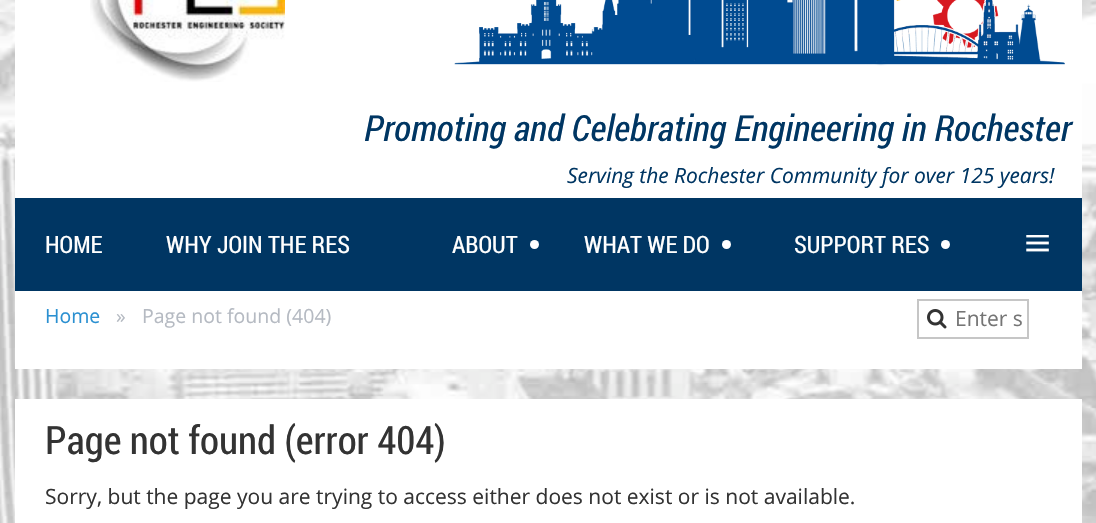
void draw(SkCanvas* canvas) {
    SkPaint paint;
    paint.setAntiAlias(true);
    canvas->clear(0xFFFFFFFF);
    canvas->drawImageRect(SkImages::DeferredFromEncodedData(SkData::MakeFromFileName("img1.png")), SkRect::MakeXYWH(0, 0, 1096, 523), SkSamplingOptions());
    paint.setColor(0xFFFFFFFF);
    canvas->drawRect(SkRect::MakeXYWH(15, 0, 1067, 198), paint);
    canvas->drawImageRect(SkImages::DeferredFromEncodedData(SkData::MakeFromFileName("img2.png")), SkRect::MakeXYWH(90, 0, 195, 82), SkSamplingOptions());
    canvas->drawImageRect(SkImages::DeferredFromEncodedData(SkData::MakeFromFileName("img3.png")), SkRect::MakeXYWH(454, 0, 611, 66), SkSamplingOptions());
    SkFont font1(fontMgr->matchFamilyStyle("Roboto Condensed", SkFontStyle::Italic()), 36);
    font1.setSubpixel(true);
    paint.setColor(0xFF003663);
    canvas->drawString("Promoting and Celebrating Engineering in Rochester", 364, 141, font1, paint);
    SkFont font2(fontMgr->matchFamilyStyle("Open Sans", SkFontStyle::Italic()), 21);
    font2.setSubpixel(true);
    canvas->drawString("Serving the Rochester Community for over 125 years!", 567, 183, font2, paint);
    canvas->drawRect(SkRect::MakeXYWH(15, 198, 1067, 93), paint);
    SkFont font3(fontMgr->matchFamilyStyle("Roboto Condensed", SkFontStyle::Normal()), 24);
    font3.setSubpixel(true);
    paint.setColor(0xFFFEFEFE);
    canvas->drawString("HOME", 45, 253, font3, paint);
    canvas->drawString("WHY JOIN THE RES", 166, 253, font3, paint);
    canvas->drawString("ABOUT", 452, 253, font3, paint);
    paint.setColor(0xFFFFFFFF);
    canvas->drawCircle(534.5f, 244.5f, 4.5f, paint);
    paint.setColor(0xFFFEFEFE);
    canvas->drawString("WHAT WE DO", 584, 253, font3, paint);
    paint.setColor(0xFFFFFFFF);
    canvas->drawCircle(726.5f, 244.5f, 4.5f, paint);
    paint.setColor(0xFFFEFEFE);
    canvas->drawString("SUPPORT RES", 794, 253, font3, paint);
    paint.setColor(0xFFFFFFFF);
    canvas->drawCircle(945.5f, 244.5f, 4.5f, paint);
    SkFont font4(fontMgr->matchFamilyStyle("Liberation Serif", SkFontStyle::Normal()), 48);
    font4.setSubpixel(true);
    paint.setColor(0xFFFEFEFE);
    canvas->drawString("≡", 1024, 259, font4, paint);
    paint.setColor(0xFFFFFFFF);
    canvas->drawRect(SkRect::MakeXYWH(15, 291, 1067, 78), paint);
    SkFont font5(fontMgr->matchFamilyStyle("Open Sans", SkFontStyle::Normal()), 19.5f);
    font5.setSubpixel(true);
    paint.setColor(0xFF2B90D1);
    canvas->drawString("Home", 45, 323, font5, paint);
    paint.setColor(0xFFB5BAC2);
    canvas->drawString("»", 116, 323, font5, paint);
    canvas->drawString("Page not found (404)", 142, 323, font5, paint);
    paint.setStyle(SkPaint::kStroke_Style);
    paint.setStrokeWidth(2);
    paint.setColor(0xFFC6C6C6);
    canvas->drawRect(SkRect::MakeXYWH(918, 300, 110, 38), paint);
    canvas->drawImageRect(SkImages::DeferredFromEncodedData(SkData::MakeFromFileName("img4.png")), SkRect::MakeXYWH(927, 309, 20, 20), SkSamplingOptions());
    SkFont font6(fontMgr->matchFamilyStyle("Open Sans", SkFontStyle::Normal()), 21);
    font6.setSubpixel(true);
    paint.setStyle(SkPaint::kFill_Style);
    paint.setColor(0xFF757575);
    canvas->drawString("Enter s", 955, 326, font6, paint);
    paint.setColor(0xFFFFFFFF);
    canvas->drawRect(SkRect::MakeXYWH(15, 399, 1067, 124), paint);
    SkFont font7(fontMgr->matchFamilyStyle("Roboto Condensed", SkFontStyle::Normal()), 39);
    font7.setSubpixel(true);
    paint.setColor(0xFF333333);
    canvas->drawString("Page not found (error 404)", 45, 454, font7, paint);
    canvas->drawString("Sorry, but the page you are trying to access either does not exist or is not available.", 45, 504, font6, paint);
}
